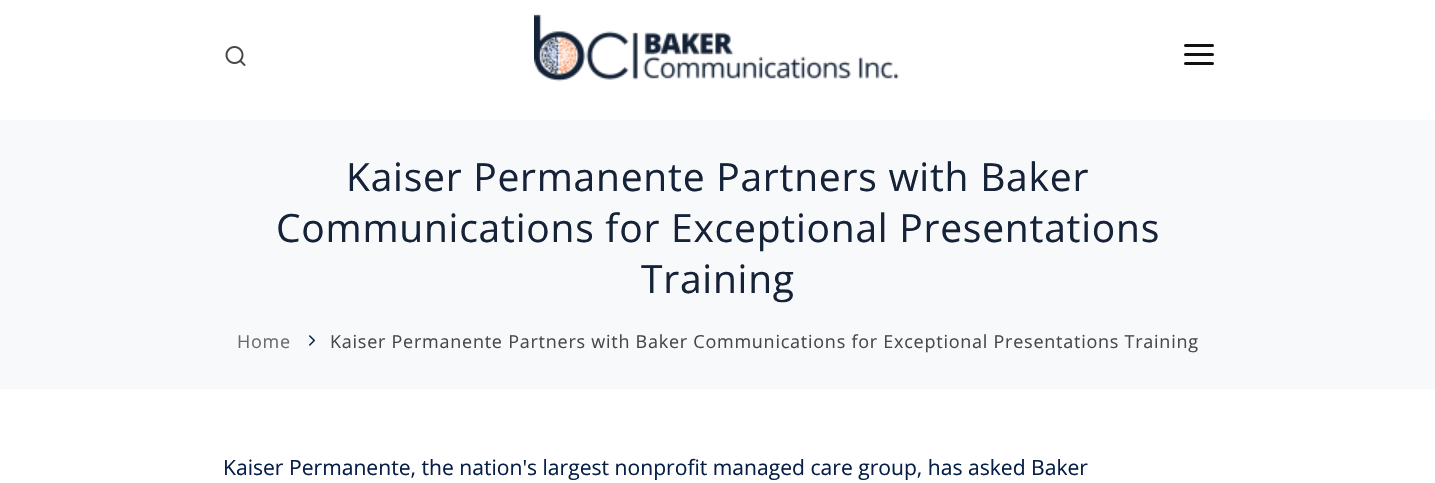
void draw(SkCanvas* canvas) {
    SkPaint paint;
    paint.setAntiAlias(true);
    auto spacedText = [&](const char* s, float x, float y, const SkFont& font, const SkPaint& ink, float letter, float word) {
        std::vector<SkGlyphID> glyphs(font.countText(s, strlen(s), SkTextEncoding::kUTF8));
        std::vector<float> xs(glyphs.size());
        font.textToGlyphs(s, strlen(s), SkTextEncoding::kUTF8, glyphs);
        font.getXPos(glyphs, xs, x);
        float extra = 0;
        for (size_t i = 0; i < glyphs.size(); i++) {
            xs[i] += extra;
            extra += letter + word * (glyphs[i] == font.unicharToGlyph(' '));
        }
        canvas->drawTextBlob(SkTextBlob::MakeFromPosHGlyphs(glyphs, xs, y, font), 0, 0, ink);
    };
    canvas->clear(0xFFFFFFFF);
    canvas->drawImageRect(SkImages::DeferredFromEncodedData(SkData::MakeFromFileName("img1.png")), SkRect::MakeXYWH(225, 46, 21, 20), SkSamplingOptions());
    canvas->drawImageRect(SkImages::DeferredFromEncodedData(SkData::MakeFromFileName("img2.png")), SkRect::MakeXYWH(534, 14, 365, 68), SkSamplingOptions());
    paint.setColor(0xFF111111);
    canvas->drawRoundRect(SkRect::MakeXYWH(1184, 53, 30, 3), 1.5f, 1.5f, paint);
    canvas->drawRoundRect(SkRect::MakeXYWH(1184, 44, 30, 3), 1.5f, 1.5f, paint);
    canvas->drawRoundRect(SkRect::MakeXYWH(1184, 62, 30, 3), 1.5f, 1.5f, paint);
    paint.setColor(0xFFF8F9FA);
    canvas->drawRect(SkRect::MakeXYWH(0, 120, 1435, 269), paint);
    SkFont font1(fontMgr->matchFamilyStyle("Open Sans", SkFontStyle::Normal()), 39);
    font1.setSubpixel(true);
    paint.setColor(0xFF152238);
    spacedText("Kaiser Permanente Partners with Baker", 346, 191, font1, paint, 0.75f, 0);
    spacedText("Communications for Exceptional Presentations", 276, 242, font1, paint, 0.75f, 0);
    spacedText("Training", 641, 293, font1, paint, 0.75f, 0);
    SkFont font2(fontMgr->matchFamilyStyle("Open Sans", SkFontStyle::Normal()), 18);
    font2.setSubpixel(true);
    paint.setColor(0xFF6B6B6C);
    spacedText("Home", 237, 348, font2, paint, 0.75f, 0);
    canvas->drawImageRect(SkImages::DeferredFromEncodedData(SkData::MakeFromFileName("img3.png")), SkRect::MakeXYWH(309, 335, 6, 11), SkSamplingOptions());
    paint.setColor(0xFF484848);
    spacedText("Kaiser Permanente Partners with Baker Communications for Exceptional Presentations Training", 330, 348, font2, paint, 0.75f, 0);
    SkFont font3(fontMgr->matchFamilyStyle("Open Sans", SkFontStyle::Normal()), 21.1f);
    font3.setSubpixel(true);
    paint.setColor(0xFF071F47);
    canvas->drawString("Kaiser Permanente, the nation's largest nonprofit managed care group, has asked Baker", 223, 475, font3, paint);
}
